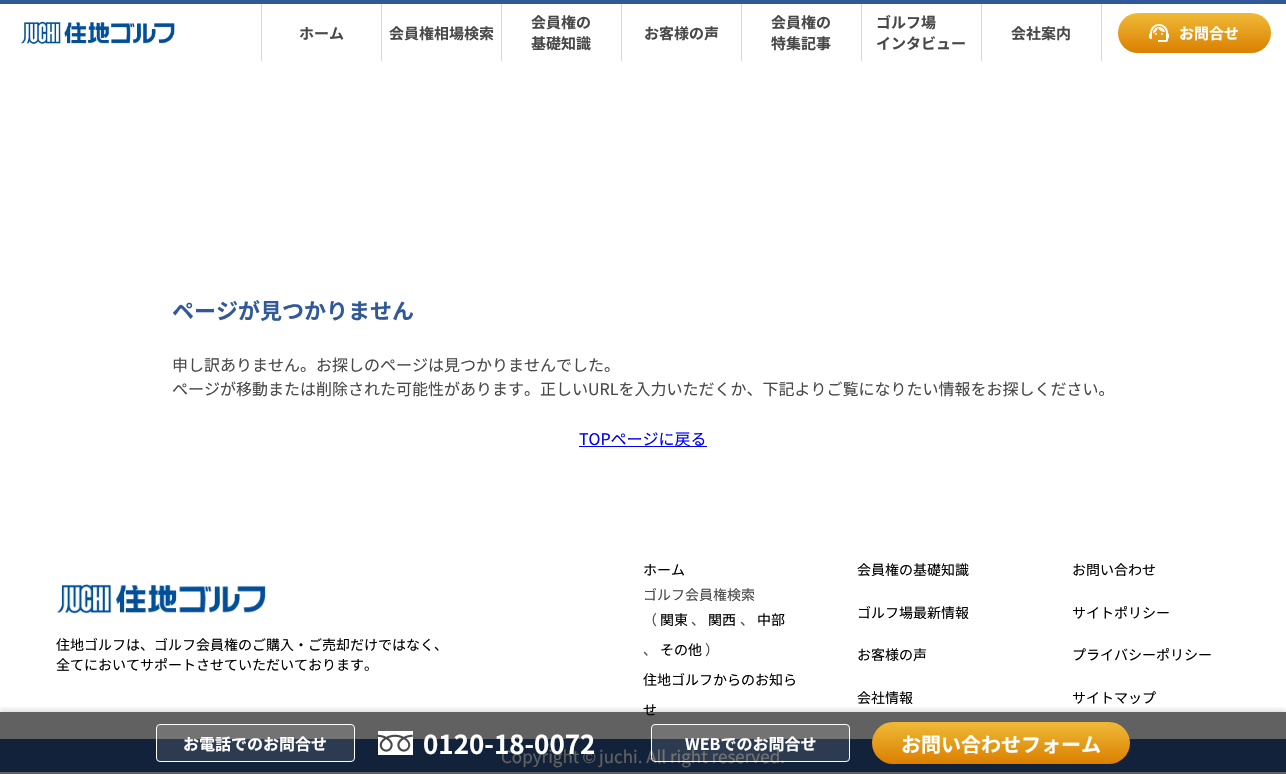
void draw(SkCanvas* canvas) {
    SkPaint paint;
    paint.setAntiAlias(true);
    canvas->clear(0xFFFFFFFF);
    paint.setColor(0xFF31599A);
    canvas->drawRect(SkRect::MakeXYWH(0, 0, 1286, 4), paint);
    canvas->drawImageRect(SkImages::DeferredFromEncodedData(SkData::MakeFromFileName("img1.png")), SkRect::MakeXYWH(20, 21, 155, 23), SkSamplingOptions());
    paint.setColor(0xFFD8D8D8);
    canvas->drawRect(SkRect::MakeXYWH(261, 4, 1, 57), paint);
    SkFont font1(fontMgr->matchFamilyStyle("Noto Sans JP", SkFontStyle::Bold()), 15);
    font1.setSubpixel(true);
    paint.setColor(0xFF484848);
    canvas->drawString("ホーム", 299, 39, font1, paint);
    paint.setColor(0xFFD8D8D8);
    canvas->drawRect(SkRect::MakeXYWH(381, 4, 1, 57), paint);
    paint.setColor(0xFF484848);
    canvas->drawString("会員権相場検索", 389, 39, font1, paint);
    paint.setColor(0xFFD8D8D8);
    canvas->drawRect(SkRect::MakeXYWH(501, 4, 1, 57), paint);
    paint.setColor(0xFF484848);
    canvas->drawString("会員権の", 531, 28, font1, paint);
    canvas->drawString("基礎知識", 531, 49, font1, paint);
    paint.setColor(0xFFD8D8D8);
    canvas->drawRect(SkRect::MakeXYWH(621, 4, 1, 57), paint);
    paint.setColor(0xFF484848);
    canvas->drawString("お客様の声", 644, 39, font1, paint);
    paint.setColor(0xFFD8D8D8);
    canvas->drawRect(SkRect::MakeXYWH(741, 4, 1, 57), paint);
    paint.setColor(0xFF484848);
    canvas->drawString("会員権の", 771, 28, font1, paint);
    canvas->drawString("特集記事", 771, 49, font1, paint);
    paint.setColor(0xFFD8D8D8);
    canvas->drawRect(SkRect::MakeXYWH(861, 4, 1, 57), paint);
    paint.setColor(0xFF484848);
    canvas->drawString("ゴルフ場", 876, 28, font1, paint);
    canvas->drawString("インタビュー", 876, 49, font1, paint);
    paint.setColor(0xFFD8D8D8);
    canvas->drawRect(SkRect::MakeXYWH(981, 4, 1, 57), paint);
    paint.setColor(0xFF484848);
    canvas->drawString("会社案内", 1011, 39, font1, paint);
    paint.setColor(0xFFD8D8D8);
    canvas->drawRect(SkRect::MakeXYWH(1101, 4, 1, 57), paint);
    {
        const SkColor colors[] = {0xFFEFBA37, 0xFFDB7F00};
        const float stops[] = {0, 1};
        const SkPoint ends[] = {{1195, 13}, {1195, 53}};
        paint.setShader(SkGradientShader::MakeLinear(ends, colors, stops, 2, SkTileMode::kClamp));
        paint.setAlpha(255);
    }
    canvas->drawRoundRect(SkRect::MakeXYWH(1118, 13, 153, 40), 20, 20, paint);
    canvas->drawImageRect(SkImages::DeferredFromEncodedData(SkData::MakeFromFileName("img2.png")), SkRect::MakeXYWH(1149, 24, 20, 18), SkSamplingOptions());
    paint.setShader(nullptr);
    paint.setColor(0xFFFFFFFF);
    canvas->drawString("お問合せ", 1179, 39, font1, paint);
    SkFont font2(fontMgr->matchFamilyStyle("Noto Sans JP", SkFontStyle::Bold()), 22);
    font2.setSubpixel(true);
    paint.setColor(0xFF31599A);
    canvas->drawString("ページが見つかりません", 172, 319, font2, paint);
    SkFont font3(fontMgr->matchFamilyStyle("Noto Sans JP", SkFontStyle::Normal()), 16);
    font3.setSubpixel(true);
    paint.setColor(0xFF484848);
    canvas->drawString("申し訳ありません。お探しのページは見つかりませんでした。", 172, 371, font3, paint);
    canvas->drawString("ページが移動または削除された可能性があります。正しいURLを入力いただくか、下記よりご覧になりたい情報をお探しください。", 172, 395, font3, paint);
    paint.setColor(0xFF0000EE);
    canvas->drawRect(SkRect::MakeXYWH(579, 446, 128, 1), paint);
    canvas->drawString("TOPページに戻る", 579, 445, font3, paint);
    canvas->drawImageRect(SkImages::DeferredFromEncodedData(SkData::MakeFromFileName("img3.png")), SkRect::MakeXYWH(57, 584, 209, 30), SkSamplingOptions());
    SkFont font4(fontMgr->matchFamilyStyle("Noto Sans JP", SkFontStyle::Normal()), 14);
    font4.setSubpixel(true);
    paint.setColor(0xFF000000);
    canvas->drawString("住地ゴルフは、ゴルフ会員権のご購入・ご売却だけではなく、", 56, 650, font4, paint);
    canvas->drawString("全てにおいてサポートさせていただいております。", 56, 670, font4, paint);
    canvas->drawString("ホーム", 643, 575, font4, paint);
    paint.setColor(0xFF484848);
    canvas->drawString("ゴルフ会員権検索", 643, 600, font4, paint);
    canvas->drawString("（", 643, 625, font4, paint);
    paint.setColor(0xFF000000);
    canvas->drawString("関東", 660, 625, font4, paint);
    paint.setColor(0xFF484848);
    canvas->drawString("、", 691, 625, font4, paint);
    paint.setColor(0xFF000000);
    canvas->drawString("関西", 708, 625, font4, paint);
    paint.setColor(0xFF484848);
    canvas->drawString("、", 740, 625, font4, paint);
    paint.setColor(0xFF000000);
    canvas->drawString("中部", 757, 625, font4, paint);
    paint.setColor(0xFF484848);
    canvas->drawString("、", 643, 655, font4, paint);
    paint.setColor(0xFF000000);
    canvas->drawString("その他", 660, 655, font4, paint);
    paint.setColor(0xFF484848);
    canvas->drawString("）", 705, 655, font4, paint);
    paint.setColor(0xFF000000);
    canvas->drawString("住地ゴルフからのお知ら", 643, 685, font4, paint);
    canvas->drawString("せ", 643, 715, font4, paint);
    canvas->drawString("会員権の基礎知識", 857, 575, font4, paint);
    canvas->drawString("ゴルフ場最新情報", 857, 618, font4, paint);
    canvas->drawString("お客様の声", 857, 660, font4, paint);
    canvas->drawString("会社情報", 857, 703, font4, paint);
    canvas->drawString("お問い合わせ", 1072, 575, font4, paint);
    canvas->drawString("サイトポリシー", 1072, 618, font4, paint);
    canvas->drawString("プライバシーポリシー", 1072, 660, font4, paint);
    canvas->drawString("サイトマップ", 1072, 703, font4, paint);
    paint.setColor(0xFF31599A);
    canvas->drawRect(SkRect::MakeXYWH(0, 739, 1286, 33), paint);
    canvas->save();
    canvas->clipRect(SkRect::MakeXYWH(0, 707, 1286, 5));
    paint.setColor(0x26000000);
    paint.setMaskFilter(SkMaskFilter::MakeBlur(kNormal_SkBlurStyle, 3));
    canvas->drawRect(SkRect::MakeXYWH(0, 710, 1286, 62), paint);
    paint.setMaskFilter(nullptr);
    canvas->restore();
    SkFont font5(fontMgr->matchFamilyStyle("Noto Sans JP", SkFontStyle::Normal()), 17);
    font5.setSubpixel(true);
    paint.setColor(0xFFFFFFFF);
    canvas->drawString("Copyright", 501, 763, font5, paint);
    SkFont font6(fontMgr->matchFamilyStyle("Liberation Sans", SkFontStyle::Normal()), 17);
    font6.setSubpixel(true);
    canvas->drawString("©", 583, 763, font6, paint);
    canvas->drawString("juchi. All right reserved.", 599, 763, font5, paint);
    paint.setColor(0x9E000000);
    canvas->drawRect(SkRect::MakeXYWH(0, 712, 1286, 62), paint);
    paint.setColor(0x1CFFFFFF);
    canvas->drawRoundRect(SkRect::MakeXYWH(156.5f, 724.5f, 198, 37), 3.5f, 3.5f, paint);
    paint.setStyle(SkPaint::kStroke_Style);
    paint.setStrokeWidth(1);
    paint.setColor(0xFFFFFFFF);
    canvas->drawRoundRect(SkRect::MakeXYWH(156.5f, 724.5f, 198, 37), 3.5f, 3.5f, paint);
    SkFont font7(fontMgr->matchFamilyStyle("Noto Sans JP", SkFontStyle::Bold()), 16);
    font7.setSubpixel(true);
    paint.setStyle(SkPaint::kFill_Style);
    canvas->drawString("お電話でのお問合せ", 183, 750, font7, paint);
    canvas->drawImageRect(SkImages::DeferredFromEncodedData(SkData::MakeFromFileName("img4.png")), SkRect::MakeXYWH(377, 731, 36, 24), SkSamplingOptions());
    SkFont font8(fontMgr->matchFamilyStyle("Noto Sans JP", SkFontStyle::Bold()), 26);
    font8.setSubpixel(true);
    canvas->drawString("0120-18-0072", 423, 754, font8, paint);
    paint.setColor(0x1CFFFFFF);
    canvas->drawRoundRect(SkRect::MakeXYWH(651.5f, 724.5f, 198, 37), 3.5f, 3.5f, paint);
    paint.setStyle(SkPaint::kStroke_Style);
    paint.setColor(0xFFFFFFFF);
    canvas->drawRoundRect(SkRect::MakeXYWH(651.5f, 724.5f, 198, 37), 3.5f, 3.5f, paint);
    paint.setStyle(SkPaint::kFill_Style);
    canvas->drawString("WEBでのお問合せ", 685, 750, font7, paint);
    {
        const SkColor colors[] = {0xFFEFBA37, 0xFFDB7F00};
        const float stops[] = {0, 1};
        const SkPoint ends[] = {{1001, 722}, {1001, 764}};
        paint.setShader(SkGradientShader::MakeLinear(ends, colors, stops, 2, SkTileMode::kClamp));
        paint.setAlpha(255);
    }
    canvas->drawRoundRect(SkRect::MakeXYWH(872, 722, 258, 42), 21, 21, paint);
    SkFont font9(fontMgr->matchFamilyStyle("Noto Sans JP", SkFontStyle::Bold()), 20);
    font9.setSubpixel(true);
    paint.setShader(nullptr);
    paint.setColor(0xFFFFFFFF);
    canvas->drawString("お問い合わせフォーム", 901, 752, font9, paint);
}
